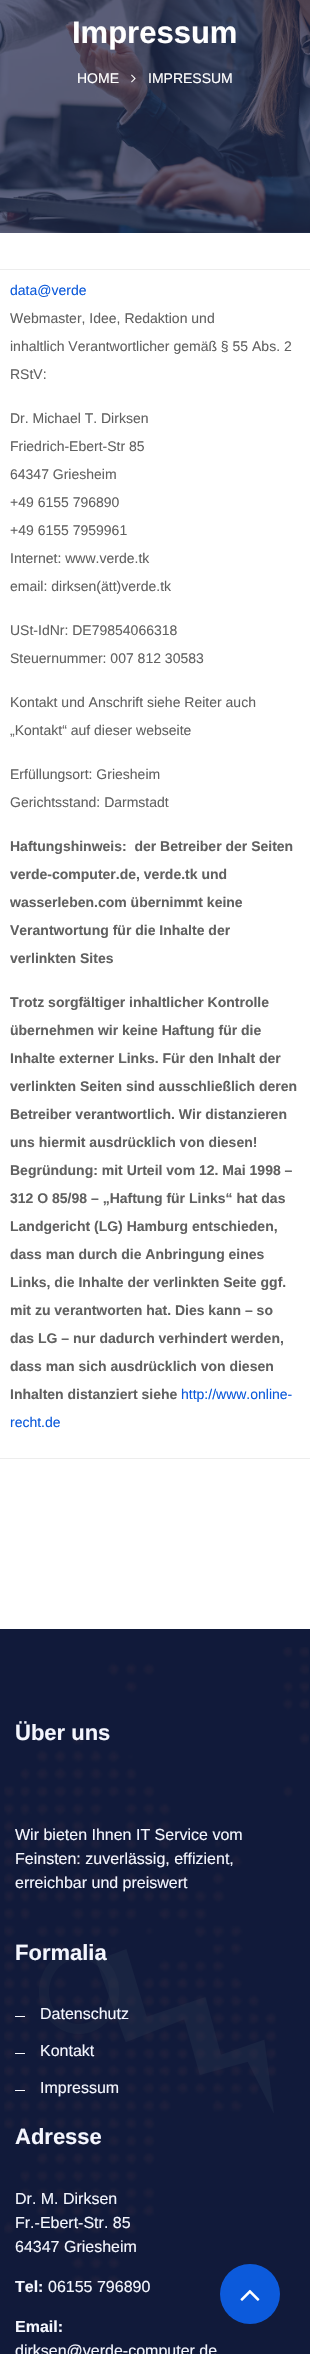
void draw(SkCanvas* canvas) {
    SkPaint paint;
    paint.setAntiAlias(true);
    canvas->clear(0xFFFFFFFF);
    canvas->drawImageRect(SkImages::DeferredFromEncodedData(SkData::MakeFromFileName("img1.png")), SkRect::MakeXYWH(0, 0, 310, 233), SkSamplingOptions());
    SkFont font1(fontMgr->matchFamilyStyle("Liberation Sans", SkFontStyle::Bold()), 31);
    font1.setSubpixel(true);
    paint.setColor(0xFFFFFFFF);
    canvas->drawString("Impressum", 72, 43, font1, paint);
    SkFont font2(fontMgr->matchFamilyStyle("Liberation Sans", SkFontStyle::Normal()), 14);
    font2.setSubpixel(true);
    canvas->drawString("HOME", 77, 83, font2, paint);
    canvas->drawImageRect(SkImages::DeferredFromEncodedData(SkData::MakeFromFileName("img2.png")), SkRect::MakeXYWH(131, 74, 5, 9), SkSamplingOptions());
    canvas->drawString("IMPRESSUM", 148, 83, font2, paint);
    paint.setColor(0xFFEDEDED);
    canvas->drawRect(SkRect::MakeXYWH(0, 1458, 310, 1), paint);
    canvas->drawRect(SkRect::MakeXYWH(0, 269, 310, 1), paint);
    paint.setColor(0xFF0C5ADB);
    canvas->drawString("data@verde", 10, 295, font2, paint);
    paint.setColor(0xFF616161);
    canvas->drawString("Webmaster, Idee, Redaktion und", 10, 323, font2, paint);
    canvas->drawString("inhaltlich Verantwortlicher gemäß § 55 Abs. 2", 10, 351, font2, paint);
    canvas->drawString("RStV:", 10, 379, font2, paint);
    canvas->drawString("Dr. Michael T. Dirksen", 10, 423, font2, paint);
    canvas->drawString("Friedrich-Ebert-Str 85", 10, 451, font2, paint);
    canvas->drawString("64347 Griesheim", 10, 479, font2, paint);
    canvas->drawString("+49 6155 796890", 10, 507, font2, paint);
    canvas->drawString("+49 6155 7959961", 10, 535, font2, paint);
    canvas->drawString("Internet: www.verde.tk", 10, 563, font2, paint);
    canvas->drawString("email: dirksen(ätt)verde.tk", 10, 591, font2, paint);
    canvas->drawString("USt-IdNr: DE79854066318", 10, 635, font2, paint);
    canvas->drawString("Steuernummer: 007 812 30583", 10, 663, font2, paint);
    canvas->drawString("Kontakt und Anschrift siehe Reiter auch", 10, 707, font2, paint);
    canvas->drawString("„Kontakt“ auf dieser webseite", 10, 735, font2, paint);
    canvas->drawString("Erfüllungsort: Griesheim", 10, 779, font2, paint);
    canvas->drawString("Gerichtsstand: Darmstadt", 10, 807, font2, paint);
    SkFont font3(fontMgr->matchFamilyStyle("Liberation Sans", SkFontStyle::Bold()), 14);
    font3.setSubpixel(true);
    canvas->drawString("Haftungshinweis:  der Betreiber der Seiten", 10, 851, font3, paint);
    canvas->drawString("verde-computer.de, verde.tk und", 10, 879, font3, paint);
    canvas->drawString("wasserleben.com übernimmt keine", 10, 907, font3, paint);
    canvas->drawString("Verantwortung für die Inhalte der", 10, 935, font3, paint);
    canvas->drawString("verlinkten Sites", 10, 963, font3, paint);
    canvas->drawString("Trotz sorgfältiger inhaltlicher Kontrolle", 10, 1007, font3, paint);
    canvas->drawString("übernehmen wir keine Haftung für die", 10, 1035, font3, paint);
    canvas->drawString("Inhalte externer Links. Für den Inhalt der", 10, 1063, font3, paint);
    canvas->drawString("verlinkten Seiten sind ausschließlich deren", 10, 1091, font3, paint);
    canvas->drawString("Betreiber verantwortlich. Wir distanzieren", 10, 1119, font3, paint);
    canvas->drawString("uns hiermit ausdrücklich von diesen!", 10, 1147, font3, paint);
    canvas->drawString("Begründung: mit Urteil vom 12. Mai 1998 –", 10, 1175, font3, paint);
    canvas->drawString("312 O 85/98 – „Haftung für Links“ hat das", 10, 1203, font3, paint);
    canvas->drawString("Landgericht (LG) Hamburg entschieden,", 10, 1231, font3, paint);
    canvas->drawString("dass man durch die Anbringung eines", 10, 1259, font3, paint);
    canvas->drawString("Links, die Inhalte der verlinkten Seite ggf.", 10, 1287, font3, paint);
    canvas->drawString("mit zu verantworten hat. Dies kann – so", 10, 1315, font3, paint);
    canvas->drawString("das LG – nur dadurch verhindert werden,", 10, 1343, font3, paint);
    canvas->drawString("dass man sich ausdrücklich von diesen", 10, 1371, font3, paint);
    canvas->drawString("Inhalten distanziert siehe", 10, 1399, font3, paint);
    paint.setColor(0xFF0C5ADB);
    canvas->drawString("http://www.online-", 181, 1399, font2, paint);
    canvas->drawString("recht.de", 10, 1427, font2, paint);
    paint.setColor(0xFF111A3A);
    canvas->drawRect(SkRect::MakeXYWH(0, 1629, 310, 725), paint);
    canvas->drawImageRect(SkImages::DeferredFromEncodedData(SkData::MakeFromFileName("img3.png")), SkRect::MakeXYWH(4, 1647, 305, 639), SkSamplingOptions());
    SkFont font4(fontMgr->matchFamilyStyle("Liberation Sans", SkFontStyle::Bold()), 22);
    font4.setSubpixel(true);
    paint.setColor(0xFFF4F6FE);
    canvas->drawString("Über uns", 15, 1740, font4, paint);
    SkFont font5(fontMgr->matchFamilyStyle("Liberation Sans", SkFontStyle::Normal()), 16);
    font5.setSubpixel(true);
    canvas->drawString("Wir bieten Ihnen IT Service vom", 15, 1840, font5, paint);
    canvas->drawString("Feinsten: zuverlässig, effizient,", 15, 1864, font5, paint);
    canvas->drawString("erreichbar und preiswert", 15, 1888, font5, paint);
    canvas->drawImageRect(SkImages::DeferredFromEncodedData(SkData::MakeFromFileName("img4.png")), SkRect::MakeXYWH(39, 1949, 80, 85), SkSamplingOptions());
    canvas->drawImageRect(SkImages::DeferredFromEncodedData(SkData::MakeFromFileName("img5.png")), SkRect::MakeXYWH(96, 1949, 178, 164), SkSamplingOptions());
    canvas->drawString("Formalia", 15, 1960, font4, paint);
    paint.setColor(0xFFF8F9FE);
    canvas->drawRect(SkRect::MakeXYWH(15, 2016, 10, 1), paint);
    paint.setColor(0xFFF4F6FE);
    canvas->drawString("Datenschutz", 40, 2019, font5, paint);
    paint.setColor(0xFFF8F9FE);
    canvas->drawRect(SkRect::MakeXYWH(15, 2053, 10, 1), paint);
    paint.setColor(0xFFF4F6FE);
    canvas->drawString("Kontakt", 40, 2056, font5, paint);
    paint.setColor(0xFFF8F9FE);
    canvas->drawRect(SkRect::MakeXYWH(15, 2090, 10, 1), paint);
    paint.setColor(0xFFF4F6FE);
    canvas->drawString("Impressum", 40, 2093, font5, paint);
    canvas->drawString("Adresse", 15, 2144, font4, paint);
    canvas->drawString("Dr. M. Dirksen", 15, 2204, font5, paint);
    canvas->drawString("Fr.-Ebert-Str. 85", 15, 2228, font5, paint);
    canvas->drawString("64347 Griesheim", 15, 2252, font5, paint);
    SkFont font6(fontMgr->matchFamilyStyle("Liberation Sans", SkFontStyle::Bold()), 16);
    font6.setSubpixel(true);
    canvas->drawString("Tel:", 15, 2292, font6, paint);
    canvas->drawString("06155 796890", 48, 2292, font5, paint);
    canvas->drawString("Email:", 15, 2332, font6, paint);
    canvas->drawString("dirksen@verde-computer.de", 15, 2356, font5, paint);
    paint.setColor(0xFF0C5ADB);
    canvas->drawCircle(250, 2294, 30, paint);
    canvas->drawImageRect(SkImages::DeferredFromEncodedData(SkData::MakeFromFileName("img6.png")), SkRect::MakeXYWH(240, 2289, 20, 12), SkSamplingOptions());
}
